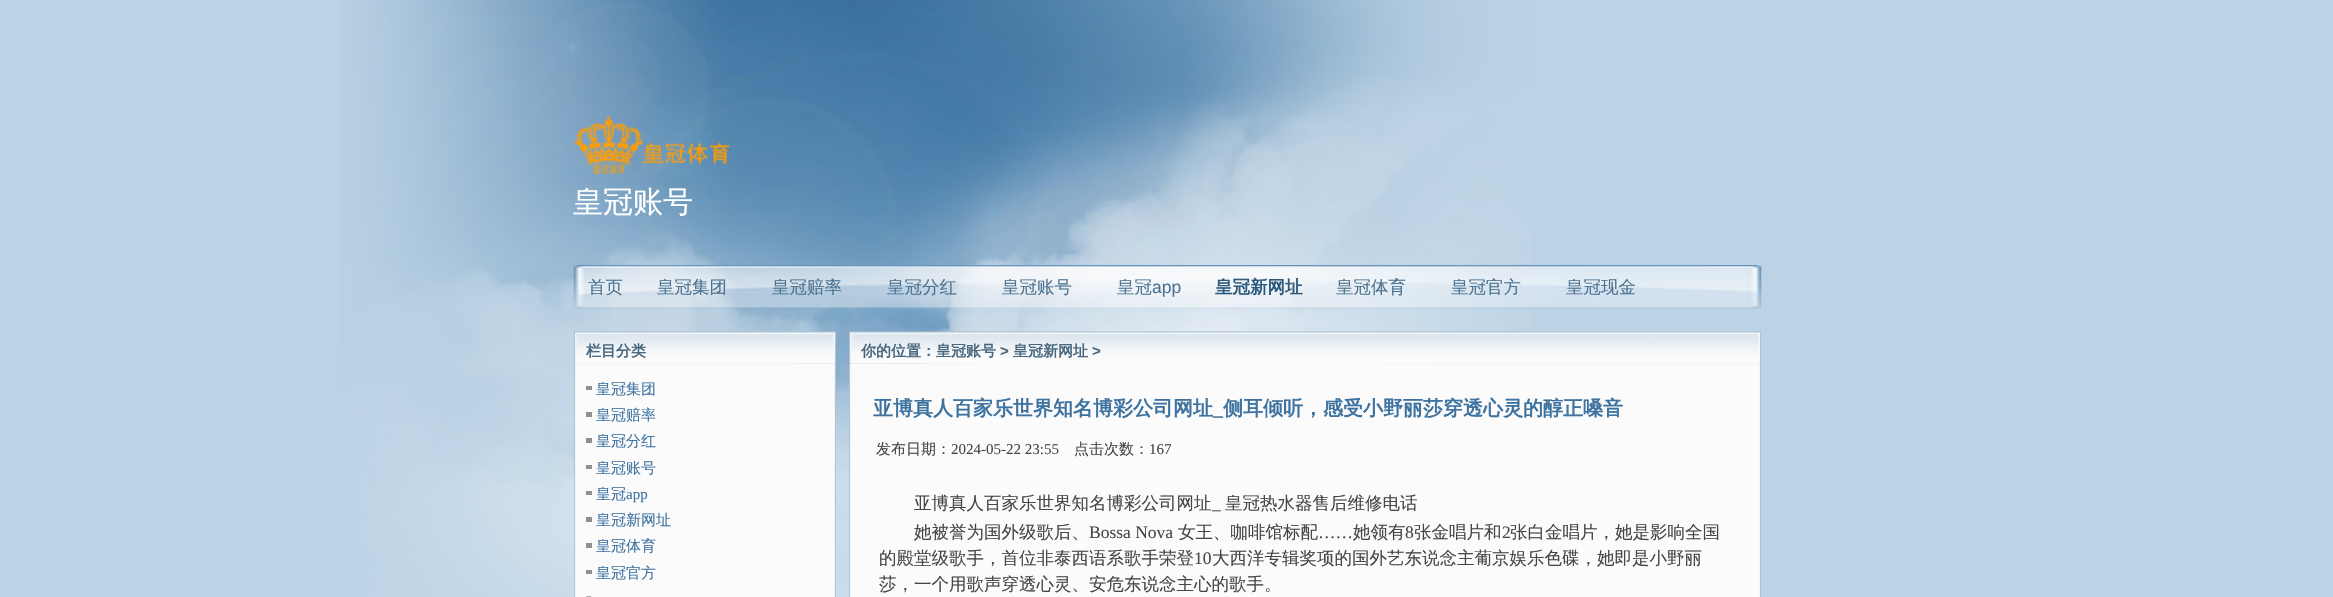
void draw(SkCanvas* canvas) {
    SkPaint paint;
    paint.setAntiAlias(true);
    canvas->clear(0xFFBCD3E5);
    canvas->drawImageRect(SkImages::DeferredFromEncodedData(SkData::MakeFromFileName("img1.png")), SkRect::MakeXYWH(340, 0, 1193, 597), SkSamplingOptions());
    canvas->drawImageRect(SkImages::DeferredFromEncodedData(SkData::MakeFromFileName("img2.png")), SkRect::MakeXYWH(574, 116, 156, 58), SkSamplingOptions());
    SkFont font1(fontMgr->matchFamilyStyle("WenQuanYi Zen Hei", SkFontStyle(500, SkFontStyle::kNormal_Width, SkFontStyle::kUpright_Slant)), 30);
    font1.setSubpixel(true);
    paint.setColor(0xFFFFFFFF);
    canvas->drawString("皇冠账号", 573, 212, font1, paint);
    canvas->drawImageRect(SkImages::DeferredFromEncodedData(SkData::MakeFromFileName("img3.png")), SkRect::MakeXYWH(573, 265, 1189, 44), SkSamplingOptions());
    SkFont font2(fontMgr->matchFamilyStyle("WenQuanYi Zen Hei", SkFontStyle(500, SkFontStyle::kNormal_Width, SkFontStyle::kUpright_Slant)), 17.5f);
    font2.setSubpixel(true);
    paint.setColor(0xFF4B7290);
    canvas->drawString("首页", 588, 293, font2, paint);
    canvas->drawString("皇冠集团", 657, 293, font2, paint);
    canvas->drawString("皇冠赔率", 772, 293, font2, paint);
    canvas->drawString("皇冠分红", 887, 293, font2, paint);
    canvas->drawString("皇冠账号", 1002, 293, font2, paint);
    canvas->drawString("皇冠", 1117, 293, font2, paint);
    SkFont font3(fontMgr->matchFamilyStyle("Liberation Sans", SkFontStyle::Normal()), 17.5f);
    font3.setSubpixel(true);
    canvas->drawString("app", 1152, 293, font3, paint);
    SkFont font4(fontMgr->matchFamilyStyle("WenQuanYi Zen Hei", SkFontStyle::Bold()), 17.5f);
    font4.setSubpixel(true);
    paint.setColor(0xFF2C597C);
    canvas->drawString("皇冠新网址", 1215, 293, font4, paint);
    paint.setColor(0xFF4B7290);
    canvas->drawString("皇冠体育", 1336, 293, font2, paint);
    canvas->drawString("皇冠官方", 1451, 293, font2, paint);
    canvas->drawString("皇冠现金", 1566, 293, font2, paint);
    canvas->drawImageRect(SkImages::DeferredFromEncodedData(SkData::MakeFromFileName("img5.png")), SkRect::MakeXYWH(574, 363, 262, 234), SkSamplingOptions());
    canvas->drawImageRect(SkImages::DeferredFromEncodedData(SkData::MakeFromFileName("img4.png")), SkRect::MakeXYWH(574, 331, 262, 33), SkSamplingOptions());
    SkFont font5(fontMgr->matchFamilyStyle("WenQuanYi Zen Hei", SkFontStyle::Bold()), 15);
    font5.setSubpixel(true);
    paint.setColor(0xFF49687F);
    canvas->drawString("栏目分类", 586, 356, font5, paint);
    paint.setColor(0xFF909090);
    canvas->drawRect(SkRect::MakeXYWH(586, 386, 6, 4), paint);
    SkFont font6(fontMgr->matchFamilyStyle("WenQuanYi Zen Hei", SkFontStyle(500, SkFontStyle::kNormal_Width, SkFontStyle::kUpright_Slant)), 15);
    font6.setSubpixel(true);
    paint.setColor(0xFF3E73A0);
    canvas->drawString("皇冠集团", 596, 394, font6, paint);
    paint.setColor(0xFF909090);
    canvas->drawRect(SkRect::MakeXYWH(586, 412, 6, 5), paint);
    paint.setColor(0xFF3E73A0);
    canvas->drawString("皇冠赔率", 596, 420, font6, paint);
    paint.setColor(0xFF909090);
    canvas->drawRect(SkRect::MakeXYWH(586, 438, 6, 5), paint);
    paint.setColor(0xFF3E73A0);
    canvas->drawString("皇冠分红", 596, 446, font6, paint);
    paint.setColor(0xFF909090);
    canvas->drawRect(SkRect::MakeXYWH(586, 465, 6, 4), paint);
    paint.setColor(0xFF3E73A0);
    canvas->drawString("皇冠账号", 596, 473, font6, paint);
    paint.setColor(0xFF909090);
    canvas->drawRect(SkRect::MakeXYWH(586, 491, 6, 4), paint);
    paint.setColor(0xFF3E73A0);
    canvas->drawString("皇冠", 596, 499, font6, paint);
    SkFont font7(fontMgr->matchFamilyStyle("Liberation Serif", SkFontStyle::Normal()), 15);
    font7.setSubpixel(true);
    canvas->drawString("app", 626, 499, font7, paint);
    paint.setColor(0xFF909090);
    canvas->drawRect(SkRect::MakeXYWH(586, 517, 6, 5), paint);
    paint.setColor(0xFF3E73A0);
    canvas->drawString("皇冠新网址", 596, 525, font6, paint);
    paint.setColor(0xFF909090);
    canvas->drawRect(SkRect::MakeXYWH(586, 543, 6, 5), paint);
    paint.setColor(0xFF3E73A0);
    canvas->drawString("皇冠体育", 596, 551, font6, paint);
    paint.setColor(0xFF909090);
    canvas->drawRect(SkRect::MakeXYWH(586, 570, 6, 4), paint);
    paint.setColor(0xFF3E73A0);
    canvas->drawString("皇冠官方", 596, 578, font6, paint);
    canvas->drawImageRect(SkImages::DeferredFromEncodedData(SkData::MakeFromFileName("img6.png")), SkRect::MakeXYWH(586, 596, 6, 1), SkSamplingOptions());
    canvas->drawImageRect(SkImages::DeferredFromEncodedData(SkData::MakeFromFileName("img8.png")), SkRect::MakeXYWH(849, 363, 912, 234), SkSamplingOptions());
    canvas->drawImageRect(SkImages::DeferredFromEncodedData(SkData::MakeFromFileName("img7.png")), SkRect::MakeXYWH(849, 331, 912, 33), SkSamplingOptions());
    paint.setColor(0xFF49687F);
    canvas->drawString("你的位置：皇冠账号", 861, 356, font5, paint);
    SkFont font8(fontMgr->matchFamilyStyle("Liberation Sans", SkFontStyle::Bold()), 15);
    font8.setSubpixel(true);
    canvas->drawString(">", 1000, 356, font8, paint);
    canvas->drawString("皇冠新网址", 1013, 356, font5, paint);
    canvas->drawString(">", 1092, 356, font8, paint);
    SkFont font9(fontMgr->matchFamilyStyle("WenQuanYi Zen Hei", SkFontStyle::Bold()), 20);
    font9.setSubpixel(true);
    paint.setColor(0xFF3E73A0);
    canvas->drawString("亚博真人百家乐世界知名博彩公司网址", 873, 415, font9, paint);
    SkFont font10(fontMgr->matchFamilyStyle("Liberation Serif", SkFontStyle::Bold()), 20);
    font10.setSubpixel(true);
    canvas->drawString("_", 1213, 415, font10, paint);
    canvas->drawString("侧耳倾听，感受小野丽莎穿透心灵的醇正嗓音", 1223, 415, font9, paint);
    paint.setColor(0xFF464646);
    canvas->drawString("发布日期：", 876, 454, font6, paint);
    canvas->drawString("2024-05-22 23:55", 951, 454, font7, paint);
    canvas->drawString("点击次数：", 1074, 454, font6, paint);
    canvas->drawString("167", 1149, 454, font7, paint);
    canvas->drawString("亚博真人百家乐世界知名博彩公司网址", 914, 509, font2, paint);
    SkFont font11(fontMgr->matchFamilyStyle("Liberation Serif", SkFontStyle::Normal()), 17.5f);
    font11.setSubpixel(true);
    canvas->drawString("_", 1212, 509, font11, paint);
    canvas->drawString("皇冠热水器售后维修电话", 1225, 509, font2, paint);
    canvas->drawString("她被誉为国外级歌后、", 914, 538, font2, paint);
    canvas->drawString("Bossa Nova", 1089, 538, font11, paint);
    canvas->drawString("女王、咖啡馆标配", 1178, 538, font2, paint);
    canvas->drawString("……", 1318, 538, font11, paint);
    canvas->drawString("她领有", 1353, 538, font2, paint);
    canvas->drawString("8", 1405, 538, font11, paint);
    canvas->drawString("张金唱片和", 1414, 538, font2, paint);
    canvas->drawString("2", 1502, 538, font11, paint);
    canvas->drawString("张白金唱片，她是影响全国", 1510, 538, font2, paint);
    canvas->drawString("的殿堂级歌手，首位非泰西语系歌手荣登", 879, 564, font2, paint);
    canvas->drawString("10", 1194, 564, font11, paint);
    canvas->drawString("大西洋专辑奖项的国外艺东说念主葡京娱乐色碟，她即是小野丽", 1212, 564, font2, paint);
    canvas->drawString("莎，一个用歌声穿透心灵、安危东说念主心的歌手。", 879, 590, font2, paint);
}
